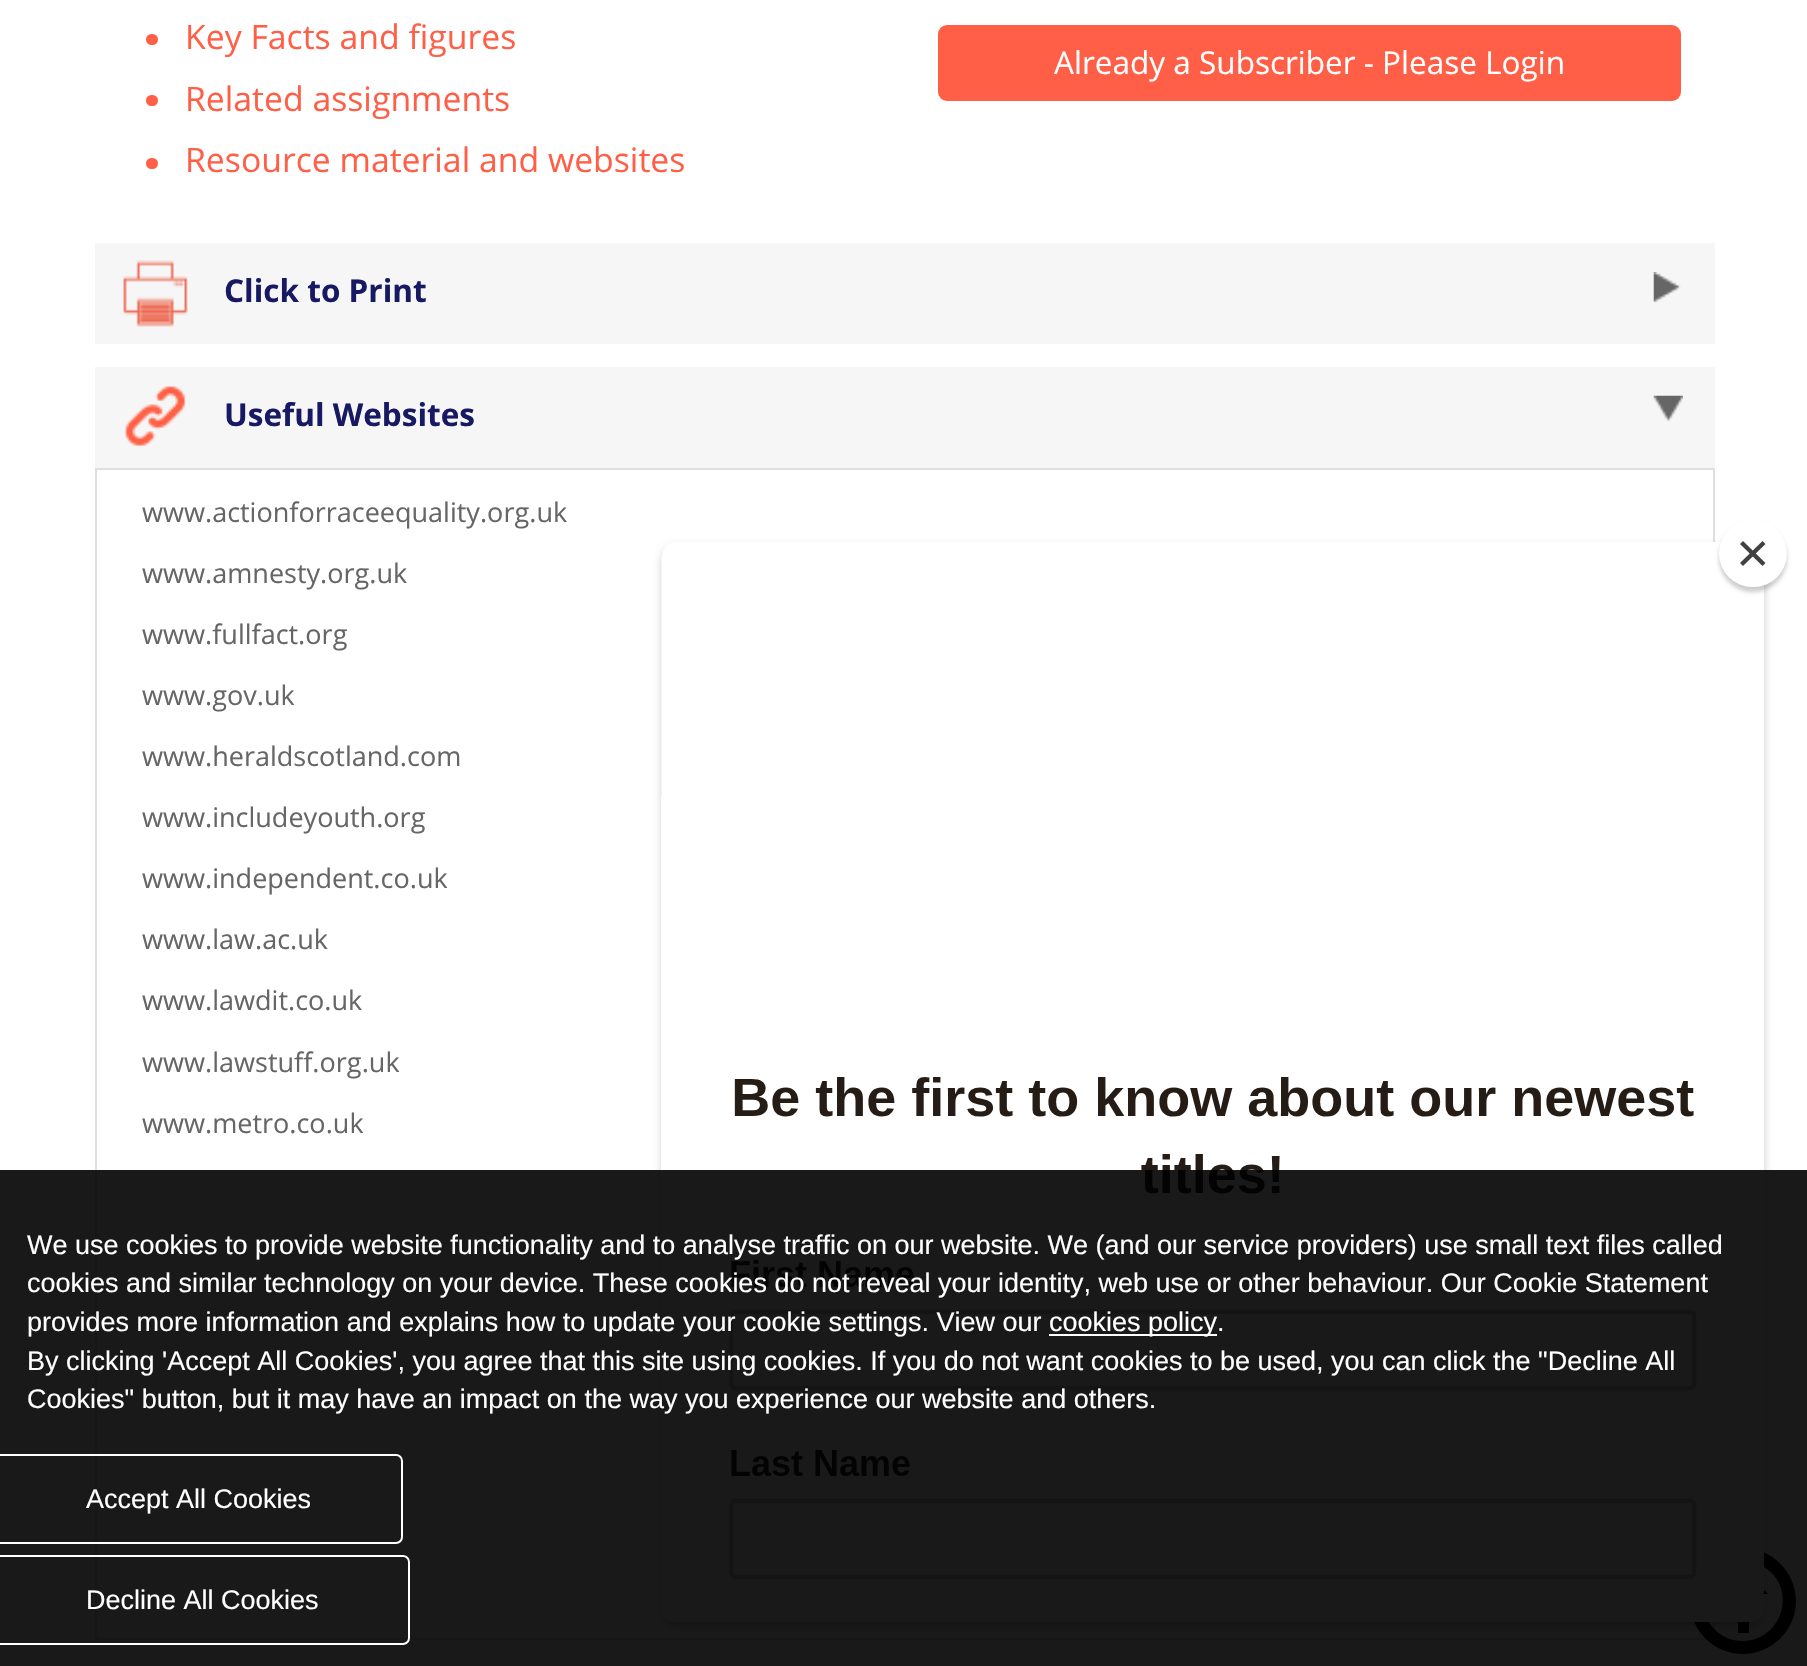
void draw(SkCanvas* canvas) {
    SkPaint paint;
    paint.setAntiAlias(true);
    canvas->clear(0xFFFFFFFF);
    paint.setColor(0xFFFF5F46);
    canvas->drawRoundRect(SkRect::MakeXYWH(146, 34, 12, 11), 5.5f, 5.5f, paint);
    SkFont font1(fontMgr->matchFamilyStyle("Open Sans", SkFontStyle::Normal()), 33.75f);
    font1.setSubpixel(true);
    canvas->drawString("Key Facts and figures", 185, 49, font1, paint);
    canvas->drawRoundRect(SkRect::MakeXYWH(146, 95, 12, 11), 5.5f, 5.5f, paint);
    canvas->drawString("Related assignments", 185, 111, font1, paint);
    canvas->drawRoundRect(SkRect::MakeXYWH(146, 158, 12, 11), 5.5f, 5.5f, paint);
    canvas->drawString("Resource material and websites", 185, 172, font1, paint);
    canvas->drawRoundRect(SkRect::MakeXYWH(938, 25, 743, 76), 9, 9, paint);
    SkFont font2(fontMgr->matchFamilyStyle("Open Sans", SkFontStyle::Normal()), 31.5f);
    font2.setSubpixel(true);
    paint.setColor(0xFFFFFFFF);
    canvas->drawString("Already a Subscriber - Please Login", 1054, 74, font2, paint);
    paint.setColor(0xFFF6F6F6);
    canvas->drawRect(SkRect::MakeXYWH(95, 243, 1620, 101), paint);
    canvas->drawImageRect(SkImages::DeferredFromEncodedData(SkData::MakeFromFileName("img1.png")), SkRect::MakeXYWH(123, 260, 65, 67), SkSamplingOptions());
    SkFont font3(fontMgr->matchFamilyStyle("Open Sans", SkFontStyle::Bold()), 31.5f);
    font3.setSubpixel(true);
    paint.setColor(0xFF171963);
    canvas->drawString("Click to Print", 224, 302, font3, paint);
    canvas->drawImageRect(SkImages::DeferredFromEncodedData(SkData::MakeFromFileName("img2.png")), SkRect::MakeXYWH(1653, 272, 28, 31), SkSamplingOptions());
    paint.setColor(0xFFF6F6F6);
    canvas->drawRect(SkRect::MakeXYWH(95, 367, 1620, 101), paint);
    canvas->drawImageRect(SkImages::DeferredFromEncodedData(SkData::MakeFromFileName("img3.png")), SkRect::MakeXYWH(125, 386, 61, 60), SkSamplingOptions());
    paint.setColor(0xFF171963);
    canvas->drawString("Useful Websites", 224, 426, font3, paint);
    canvas->drawImageRect(SkImages::DeferredFromEncodedData(SkData::MakeFromFileName("img4.png")), SkRect::MakeXYWH(1653, 395, 30, 26), SkSamplingOptions());
    paint.setStyle(SkPaint::kStroke_Style);
    paint.setStrokeWidth(2);
    paint.setColor(0xFFDFDFDF);
    canvas->drawRect(SkRect::MakeXYWH(96, 469, 1618, 1170), paint);
    SkFont font4(fontMgr->matchFamilyStyle("Open Sans", SkFontStyle::Normal()), 27);
    font4.setSubpixel(true);
    paint.setStyle(SkPaint::kFill_Style);
    paint.setColor(0xFF666666);
    canvas->drawString("www.actionforraceequality.org.uk", 142, 522, font4, paint);
    canvas->drawString("www.amnesty.org.uk", 142, 583, font4, paint);
    canvas->drawString("www.fullfact.org", 142, 644, font4, paint);
    canvas->drawString("www.gov.uk", 142, 705, font4, paint);
    canvas->drawString("www.heraldscotland.com", 142, 766, font4, paint);
    canvas->drawString("www.includeyouth.org", 142, 827, font4, paint);
    canvas->drawString("www.independent.co.uk", 142, 888, font4, paint);
    canvas->drawString("www.law.ac.uk", 142, 949, font4, paint);
    canvas->drawString("www.lawdit.co.uk", 142, 1010, font4, paint);
    canvas->drawString("www.lawstuff.org.uk", 142, 1072, font4, paint);
    canvas->drawString("www.metro.co.uk", 142, 1133, font4, paint);
    paint.setColor(0xFF000000);
    canvas->drawPath(SkPathBuilder().moveTo(1738, 1633).lineTo(1749, 1633).lineTo(1749, 1594).lineTo(1768, 1594).lineTo(1743, 1569).lineTo(1718, 1594).lineTo(1738, 1594).close().detach(), paint);
    canvas->drawPath(SkPathBuilder().moveTo(1743, 1561).cubicTo(1751, 1561, 1760, 1564, 1767, 1569).cubicTo(1798, 1592, 1780, 1641, 1743, 1641).cubicTo(1706, 1641, 1688, 1594, 1717, 1570).cubicTo(1725, 1564, 1734, 1561, 1743, 1561).moveTo(1743, 1548).cubicTo(1713, 1548, 1690, 1572, 1690, 1601).cubicTo(1690, 1630, 1713, 1654, 1743, 1654).cubicTo(1772, 1654, 1796, 1630, 1796, 1601).cubicTo(1796, 1572, 1772, 1548, 1743, 1548).close().detach(), paint);
    paint.setColor(0x33000000);
    paint.setMaskFilter(SkMaskFilter::MakeBlur(kNormal_SkBlurStyle, 4.5f));
    canvas->drawRoundRect(SkRect::MakeXYWH(662, 547, 1102, 1080), 14, 14, paint);
    paint.setMaskFilter(nullptr);
    paint.setColor(0xFFFFFFFF);
    canvas->drawRoundRect(SkRect::MakeXYWH(662, 542, 1102, 1080), 14, 14, paint);
    canvas->drawImageRect(SkImages::DeferredFromEncodedData(SkData::MakeFromFileName("img5.png")), SkRect::MakeXYWH(661, 555, 1103, 1067), SkSamplingOptions());
    paint.setColor(0x33000000);
    paint.setMaskFilter(SkMaskFilter::MakeBlur(kNormal_SkBlurStyle, 2));
    canvas->drawRoundRect(SkRect::MakeXYWH(1719, 524, 68, 68), 34, 34, paint);
    paint.setMaskFilter(nullptr);
    paint.setColor(0xFFFFFFFF);
    canvas->drawRoundRect(SkRect::MakeXYWH(1719, 520, 68, 67), 33.5f, 33.5f, paint);
    paint.setColor(0xFF414141);
    canvas->drawPath(SkPathBuilder().moveTo(1762.5f, 541).lineTo(1765.5f, 544).lineTo(1743, 566).lineTo(1740, 563).close().detach(), paint);
    canvas->drawPath(SkPathBuilder().moveTo(1740, 544).lineTo(1743, 541).lineTo(1765.5f, 563).lineTo(1762.5f, 566).close().detach(), paint);
    paint.setColor(0xE6000000);
    canvas->drawRect(SkRect::MakeXYWH(0, 1170, 1807, 496), paint);
    SkFont font5(fontMgr->matchFamilyStyle("Liberation Sans", SkFontStyle::Normal()), 27);
    font5.setSubpixel(true);
    paint.setColor(0xFFFFFFFF);
    canvas->drawString("We use cookies to provide website functionality and to analyse traffic on our website. We (and our service providers) use small text files called", 27, 1254, font5, paint);
    canvas->drawString("cookies and similar technology on your device. These cookies do not reveal your identity, web use or other behaviour. Our Cookie Statement", 27, 1292, font5, paint);
    canvas->drawString("provides more information and explains how to update your cookie settings. View our", 27, 1331, font5, paint);
    canvas->drawRect(SkRect::MakeXYWH(1049, 1334, 168, 2), paint);
    canvas->drawString("cookies policy.", 1049, 1331, font5, paint);
    canvas->drawString("By clicking 'Accept All Cookies', you agree that this site using cookies. If you do not want cookies to be used, you can click the \"Decline All", 27, 1370, font5, paint);
    canvas->drawString("Cookies\" button, but it may have an impact on the way you experience our website and others.", 27, 1408, font5, paint);
    paint.setStyle(SkPaint::kStroke_Style);
    canvas->drawRoundRect(SkRect::MakeXYWH(-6, 1455, 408, 88), 6, 6, paint);
    paint.setStyle(SkPaint::kFill_Style);
    canvas->drawString("Accept All Cookies", 86, 1508, font5, paint);
    paint.setStyle(SkPaint::kStroke_Style);
    canvas->drawRoundRect(SkRect::MakeXYWH(-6, 1556, 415, 88), 6, 6, paint);
    paint.setStyle(SkPaint::kFill_Style);
    canvas->drawString("Decline All Cookies", 86, 1609, font5, paint);
}
